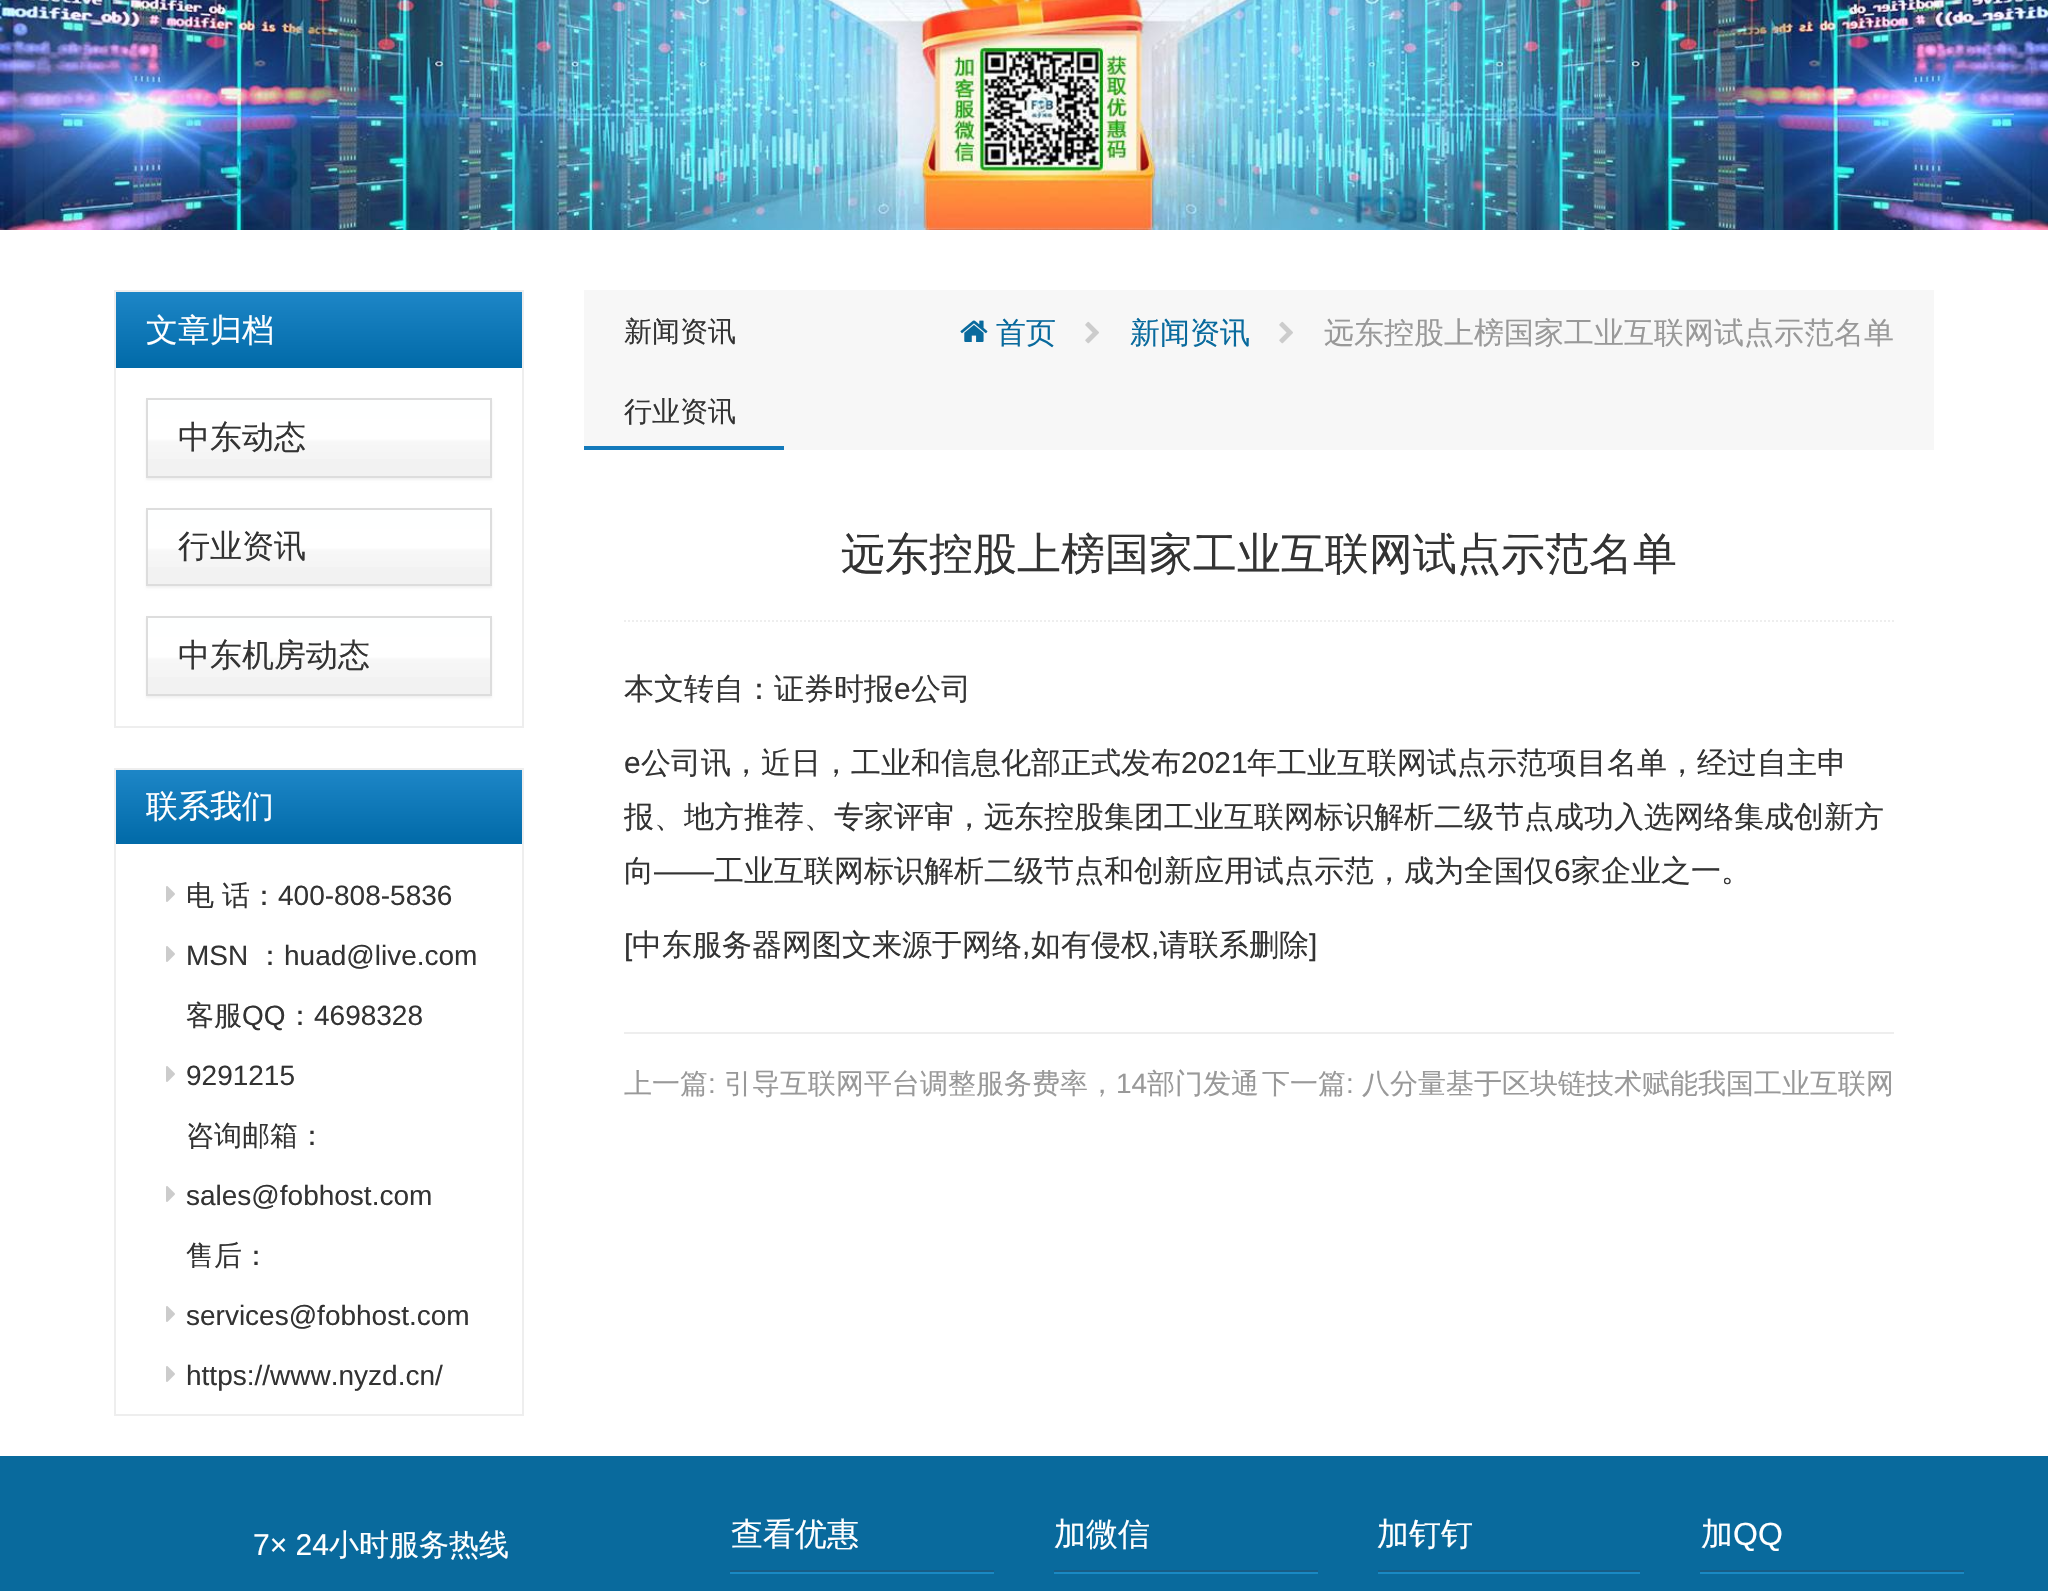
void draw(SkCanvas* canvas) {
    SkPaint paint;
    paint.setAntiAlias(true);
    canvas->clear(0xFFFFFFFF);
    canvas->drawImageRect(SkImages::DeferredFromEncodedData(SkData::MakeFromFileName("img1.png")), SkRect::MakeXYWH(0, 0, 2048, 230), SkSamplingOptions());
    paint.setStyle(SkPaint::kStroke_Style);
    paint.setStrokeWidth(2);
    paint.setColor(0xFFEEEEEE);
    canvas->drawRect(SkRect::MakeXYWH(115, 291, 408, 436), paint);
    paint.setStyle(SkPaint::kFill_Style);
    {
        const SkColor colors[] = {0xFF1D86C7, 0xFF016AA8};
        const float stops[] = {0, 1};
        const SkPoint ends[] = {{319, 292}, {319, 368}};
        paint.setShader(SkGradientShader::MakeLinear(ends, colors, stops, 2, SkTileMode::kClamp));
        paint.setAlpha(255);
    }
    canvas->drawRect(SkRect::MakeXYWH(116, 292, 406, 76), paint);
    SkFont font1(fontMgr->matchFamilyStyle("WenQuanYi Zen Hei", SkFontStyle(500, SkFontStyle::kNormal_Width, SkFontStyle::kUpright_Slant)), 32);
    font1.setSubpixel(true);
    paint.setShader(nullptr);
    paint.setColor(0xFFFFFFFF);
    canvas->drawString("文章归档", 146, 341, font1, paint);
    paint.setColor(0x0D000000);
    paint.setMaskFilter(SkMaskFilter::MakeBlur(kNormal_SkBlurStyle, 1));
    canvas->drawRect(SkRect::MakeXYWH(146, 400, 346, 80), paint);
    paint.setMaskFilter(nullptr);
    paint.setStyle(SkPaint::kStroke_Style);
    paint.setColor(0xFFDDDDDD);
    canvas->drawRect(SkRect::MakeXYWH(147, 399, 344, 78), paint);
    paint.setStyle(SkPaint::kFill_Style);
    {
        const SkColor colors[] = {0xFFFEFFFF, 0xFFFFFFFF, 0xFFF7F7F7, 0xFFF2F2F2};
        const float stops[] = {0, 0.51f, 0.55f, 1};
        const SkPoint ends[] = {{319, 400}, {319, 476}};
        paint.setShader(SkGradientShader::MakeLinear(ends, colors, stops, 4, SkTileMode::kClamp));
        paint.setAlpha(255);
    }
    canvas->drawRect(SkRect::MakeXYWH(148, 400, 342, 59), paint);
    paint.setShader(nullptr);
    paint.setColor(0xFF333333);
    canvas->drawString("中东动态", 178, 448, font1, paint);
    paint.setColor(0x0D000000);
    paint.setMaskFilter(SkMaskFilter::MakeBlur(kNormal_SkBlurStyle, 1));
    canvas->drawRect(SkRect::MakeXYWH(146, 510, 346, 78), paint);
    paint.setMaskFilter(nullptr);
    paint.setStyle(SkPaint::kStroke_Style);
    paint.setColor(0xFFDDDDDD);
    canvas->drawRect(SkRect::MakeXYWH(147, 509, 344, 76), paint);
    paint.setStyle(SkPaint::kFill_Style);
    {
        const SkColor colors[] = {0xFFFEFFFF, 0xFFFFFFFF, 0xFFF7F7F7, 0xFFF2F2F2};
        const float stops[] = {0, 0.51f, 0.55f, 1};
        const SkPoint ends[] = {{319, 510}, {319, 584}};
        paint.setShader(SkGradientShader::MakeLinear(ends, colors, stops, 4, SkTileMode::kClamp));
        paint.setAlpha(255);
    }
    canvas->drawRect(SkRect::MakeXYWH(148, 510, 342, 57), paint);
    paint.setShader(nullptr);
    paint.setColor(0xFF333333);
    canvas->drawString("行业资讯", 178, 557, font1, paint);
    paint.setColor(0x0D000000);
    paint.setMaskFilter(SkMaskFilter::MakeBlur(kNormal_SkBlurStyle, 1));
    canvas->drawRect(SkRect::MakeXYWH(146, 618, 346, 80), paint);
    paint.setMaskFilter(nullptr);
    paint.setStyle(SkPaint::kStroke_Style);
    paint.setColor(0xFFDDDDDD);
    canvas->drawRect(SkRect::MakeXYWH(147, 617, 344, 78), paint);
    paint.setStyle(SkPaint::kFill_Style);
    {
        const SkColor colors[] = {0xFFFEFFFF, 0xFFFFFFFF, 0xFFF7F7F7, 0xFFF2F2F2};
        const float stops[] = {0, 0.51f, 0.55f, 1};
        const SkPoint ends[] = {{319, 618}, {319, 694}};
        paint.setShader(SkGradientShader::MakeLinear(ends, colors, stops, 4, SkTileMode::kClamp));
        paint.setAlpha(255);
    }
    canvas->drawRect(SkRect::MakeXYWH(148, 618, 342, 59), paint);
    paint.setShader(nullptr);
    paint.setColor(0xFF333333);
    canvas->drawString("中东机房动态", 178, 666, font1, paint);
    paint.setStyle(SkPaint::kStroke_Style);
    paint.setColor(0xFFEEEEEE);
    canvas->drawRect(SkRect::MakeXYWH(115, 769, 408, 646), paint);
    paint.setStyle(SkPaint::kFill_Style);
    {
        const SkColor colors[] = {0xFF1D86C7, 0xFF016AA8};
        const float stops[] = {0, 1};
        const SkPoint ends[] = {{319, 770}, {319, 844}};
        paint.setShader(SkGradientShader::MakeLinear(ends, colors, stops, 2, SkTileMode::kClamp));
        paint.setAlpha(255);
    }
    canvas->drawRect(SkRect::MakeXYWH(116, 770, 406, 74), paint);
    paint.setShader(nullptr);
    paint.setColor(0xFFFFFFFF);
    canvas->drawString("联系我们", 146, 817, font1, paint);
    canvas->drawImageRect(SkImages::DeferredFromEncodedData(SkData::MakeFromFileName("img2.png")), SkRect::MakeXYWH(166, 886, 9, 16), SkSamplingOptions());
    SkFont font2(fontMgr->matchFamilyStyle("WenQuanYi Zen Hei", SkFontStyle(500, SkFontStyle::kNormal_Width, SkFontStyle::kUpright_Slant)), 28);
    font2.setSubpixel(true);
    paint.setColor(0xFF333333);
    canvas->drawString("电", 186, 905, font2, paint);
    canvas->drawString("话：", 222, 905, font2, paint);
    SkFont font3(fontMgr->matchFamilyStyle("Liberation Sans", SkFontStyle::Normal()), 28);
    font3.setSubpixel(true);
    canvas->drawString("400-808-5836", 278, 905, font3, paint);
    canvas->drawImageRect(SkImages::DeferredFromEncodedData(SkData::MakeFromFileName("img2.png")), SkRect::MakeXYWH(166, 946, 9, 16), SkSamplingOptions());
    canvas->drawString("MSN", 186, 965, font3, paint);
    canvas->drawString("：", 256, 965, font2, paint);
    canvas->drawString("huad@live.com", 284, 965, font3, paint);
    canvas->drawString("客服", 186, 1025, font2, paint);
    canvas->drawString("QQ", 242, 1025, font3, paint);
    canvas->drawString("：", 286, 1025, font2, paint);
    canvas->drawString("4698328", 314, 1025, font3, paint);
    canvas->drawImageRect(SkImages::DeferredFromEncodedData(SkData::MakeFromFileName("img2.png")), SkRect::MakeXYWH(166, 1066, 9, 16), SkSamplingOptions());
    canvas->drawString("9291215", 186, 1085, font3, paint);
    canvas->drawString("咨询邮箱：", 186, 1145, font2, paint);
    canvas->drawImageRect(SkImages::DeferredFromEncodedData(SkData::MakeFromFileName("img2.png")), SkRect::MakeXYWH(166, 1186, 9, 16), SkSamplingOptions());
    canvas->drawString("sales@fobhost.com", 186, 1205, font3, paint);
    canvas->drawString("售后：", 186, 1265, font2, paint);
    canvas->drawImageRect(SkImages::DeferredFromEncodedData(SkData::MakeFromFileName("img2.png")), SkRect::MakeXYWH(166, 1306, 9, 16), SkSamplingOptions());
    canvas->drawString("services@fobhost.com", 186, 1325, font3, paint);
    canvas->drawImageRect(SkImages::DeferredFromEncodedData(SkData::MakeFromFileName("img2.png")), SkRect::MakeXYWH(166, 1366, 9, 16), SkSamplingOptions());
    canvas->drawString("https://www.nyzd.cn/", 186, 1385, font3, paint);
    paint.setColor(0xFFF7F7F7);
    canvas->drawRect(SkRect::MakeXYWH(584, 290, 1350, 160), paint);
    paint.setColor(0xFF333333);
    canvas->drawString("新闻资讯", 624, 341, font2, paint);
    canvas->drawString("行业资讯", 624, 421, font2, paint);
    paint.setColor(0xFF137ABB);
    canvas->drawRect(SkRect::MakeXYWH(584, 446, 200, 4), paint);
    canvas->drawImageRect(SkImages::DeferredFromEncodedData(SkData::MakeFromFileName("img3.png")), SkRect::MakeXYWH(960, 320, 28, 22), SkSamplingOptions());
    SkFont font4(fontMgr->matchFamilyStyle("WenQuanYi Zen Hei", SkFontStyle(500, SkFontStyle::kNormal_Width, SkFontStyle::kUpright_Slant)), 30);
    font4.setSubpixel(true);
    paint.setColor(0xFF096A9D);
    canvas->drawString("首页", 996, 343, font4, paint);
    canvas->drawImageRect(SkImages::DeferredFromEncodedData(SkData::MakeFromFileName("img4.png")), SkRect::MakeXYWH(1085, 321, 14, 23), SkSamplingOptions());
    canvas->drawString("新闻资讯", 1130, 343, font4, paint);
    canvas->drawImageRect(SkImages::DeferredFromEncodedData(SkData::MakeFromFileName("img4.png")), SkRect::MakeXYWH(1279, 321, 14, 23), SkSamplingOptions());
    paint.setColor(0xFF999999);
    canvas->drawString("远东控股上榜国家工业互联网试点示范名单", 1324, 343, font4, paint);
    paint.setStyle(SkPaint::kStroke_Style);
    paint.setColor(0xFFEEEEEE);
    paint.setPathEffect(SkDashPathEffect::Make({{2, 2}}, 0));
    canvas->drawPath(SkPathBuilder().moveTo(624, 621).lineTo(1894, 621).detach(), paint);
    paint.setPathEffect(nullptr);
    SkFont font5(fontMgr->matchFamilyStyle("WenQuanYi Zen Hei", SkFontStyle(500, SkFontStyle::kNormal_Width, SkFontStyle::kUpright_Slant)), 44);
    font5.setSubpixel(true);
    paint.setStyle(SkPaint::kFill_Style);
    paint.setColor(0xFF333333);
    canvas->drawString("远东控股上榜国家工业互联网试点示范名单", 841, 569, font5, paint);
    canvas->drawString("本文转自：证券时报", 624, 699, font4, paint);
    SkFont font6(fontMgr->matchFamilyStyle("Liberation Sans", SkFontStyle::Normal()), 30);
    font6.setSubpixel(true);
    canvas->drawString("e", 894, 699, font6, paint);
    canvas->drawString("公司", 911, 699, font4, paint);
    canvas->drawString("e", 624, 773, font6, paint);
    canvas->drawString("公司讯，近日，工业和信息化部正式发布", 641, 773, font4, paint);
    canvas->drawString("2021", 1181, 773, font6, paint);
    canvas->drawString("年工业互联网试点示范项目名单，经过自主申", 1247, 773, font4, paint);
    canvas->drawString("报、地方推荐、专家评审，远东控股集团工业互联网标识解析二级节点成功入选网络集成创新方", 624, 827, font4, paint);
    canvas->drawString("向", 624, 881, font4, paint);
    canvas->drawString("——", 654, 881, font6, paint);
    canvas->drawString("工业互联网标识解析二级节点和创新应用试点示范，成为全国仅", 714, 881, font4, paint);
    canvas->drawString("6", 1554, 881, font6, paint);
    canvas->drawString("家企业之一。", 1571, 881, font4, paint);
    canvas->drawString("[", 624, 955, font6, paint);
    canvas->drawString("中东服务器网图文来源于网络", 632, 955, font4, paint);
    canvas->drawString(",", 1022, 955, font6, paint);
    canvas->drawString("如有侵权", 1031, 955, font4, paint);
    canvas->drawString(",", 1151, 955, font6, paint);
    canvas->drawString("请联系删除", 1159, 955, font4, paint);
    canvas->drawString("]", 1309, 955, font6, paint);
    paint.setColor(0xFFEEEEEE);
    canvas->drawRect(SkRect::MakeXYWH(624, 1032, 1270, 2), paint);
    paint.setColor(0xFF999999);
    canvas->drawString("上一篇", 624, 1093, font2, paint);
    canvas->drawString(":", 708, 1093, font3, paint);
    canvas->drawString("引导互联网平台调整服务费率，", 724, 1093, font2, paint);
    canvas->drawString("14", 1116, 1093, font3, paint);
    canvas->drawString("部门发通", 1147, 1093, font2, paint);
    canvas->drawString("下一篇", 1262, 1093, font2, paint);
    canvas->drawString(":", 1346, 1093, font3, paint);
    canvas->drawString("八分量基于区块链技术赋能我国工业互联网", 1362, 1093, font2, paint);
    paint.setColor(0xFF096A9D);
    canvas->drawRect(SkRect::MakeXYWH(0, 1456, 2048, 135), paint);
    paint.setColor(0xFFFFFFFF);
    canvas->drawString("7× 24", 253, 1555, font6, paint);
    canvas->drawString("小时服务热线", 329, 1555, font4, paint);
    canvas->drawString("查看优惠", 731, 1545, font1, paint);
    paint.setColor(0xFF185D86);
    canvas->drawRect(SkRect::MakeXYWH(730, 1570, 264, 2), paint);
    paint.setColor(0xFF1989C4);
    canvas->drawRect(SkRect::MakeXYWH(730, 1572, 264, 2), paint);
    paint.setColor(0xFFFFFFFF);
    canvas->drawString("加微信", 1054, 1545, font1, paint);
    paint.setColor(0xFF185D86);
    canvas->drawRect(SkRect::MakeXYWH(1054, 1570, 264, 2), paint);
    paint.setColor(0xFF1989C4);
    canvas->drawRect(SkRect::MakeXYWH(1054, 1572, 264, 2), paint);
    paint.setColor(0xFFFFFFFF);
    canvas->drawString("加钉钉", 1377, 1545, font1, paint);
    paint.setColor(0xFF185D86);
    canvas->drawRect(SkRect::MakeXYWH(1378, 1570, 262, 2), paint);
    paint.setColor(0xFF1989C4);
    canvas->drawRect(SkRect::MakeXYWH(1378, 1572, 262, 2), paint);
    paint.setColor(0xFFFFFFFF);
    canvas->drawString("加", 1701, 1545, font1, paint);
    SkFont font7(fontMgr->matchFamilyStyle("Liberation Sans", SkFontStyle::Normal()), 32);
    font7.setSubpixel(true);
    canvas->drawString("QQ", 1733, 1545, font7, paint);
    paint.setColor(0xFF185D86);
    canvas->drawRect(SkRect::MakeXYWH(1700, 1570, 264, 2), paint);
    paint.setColor(0xFF1989C4);
    canvas->drawRect(SkRect::MakeXYWH(1700, 1572, 264, 2), paint);
}
